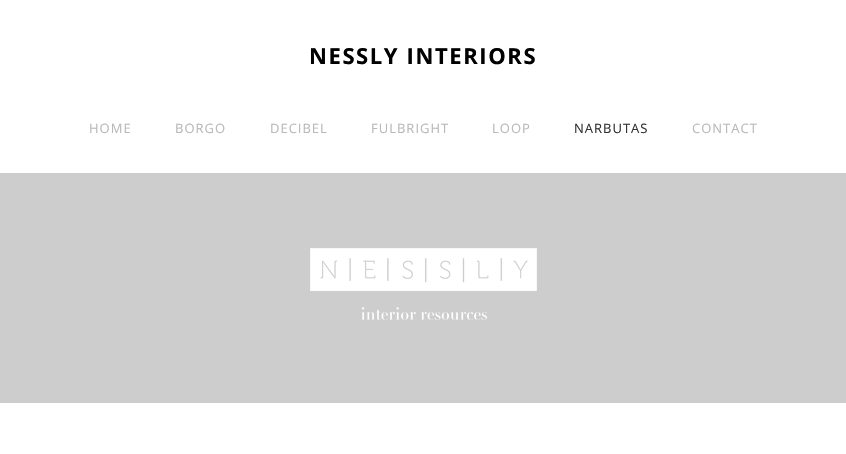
void draw(SkCanvas* canvas) {
    SkPaint paint;
    paint.setAntiAlias(true);
    auto spacedText = [&](const char* s, float x, float y, const SkFont& font, const SkPaint& ink, float letter, float word) {
        std::vector<SkGlyphID> glyphs(font.countText(s, strlen(s), SkTextEncoding::kUTF8));
        std::vector<float> xs(glyphs.size());
        font.textToGlyphs(s, strlen(s), SkTextEncoding::kUTF8, glyphs);
        font.getXPos(glyphs, xs, x);
        float extra = 0;
        for (size_t i = 0; i < glyphs.size(); i++) {
            xs[i] += extra;
            extra += letter + word * (glyphs[i] == font.unicharToGlyph(' '));
        }
        canvas->drawTextBlob(SkTextBlob::MakeFromPosHGlyphs(glyphs, xs, y, font), 0, 0, ink);
    };
    canvas->clear(0xFFFFFFFF);
    SkFont font1(fontMgr->matchFamilyStyle("Open Sans", SkFontStyle::Bold()), 22);
    font1.setSubpixel(true);
    paint.setColor(0xFF000000);
    spacedText("NESSLY INTERIORS", 309, 64, font1, paint, 1.6f, 0);
    SkFont font2(fontMgr->matchFamilyStyle("Open Sans", SkFontStyle::Normal()), 13);
    font2.setSubpixel(true);
    paint.setColor(0xFFB9B9B9);
    spacedText("HOME", 89, 133, font2, paint, 1, 0);
    spacedText("BORGO", 175, 133, font2, paint, 1, 0);
    spacedText("DECIBEL", 270, 133, font2, paint, 1, 0);
    spacedText("FULBRIGHT", 371, 133, font2, paint, 1, 0);
    spacedText("LOOP", 492, 133, font2, paint, 1, 0);
    paint.setColor(0xFF333333);
    spacedText("NARBUTAS", 574, 133, font2, paint, 1, 0);
    paint.setColor(0xFFB9B9B9);
    spacedText("CONTACT", 692, 133, font2, paint, 1, 0);
    paint.setColor(0xFFCDCDCD);
    canvas->drawRect(SkRect::MakeXYWH(0, 173, 846, 230), paint);
    canvas->drawImageRect(SkImages::DeferredFromEncodedData(SkData::MakeFromFileName("img1.png")), SkRect::MakeXYWH(310, 248, 227, 73), SkSamplingOptions());
}
